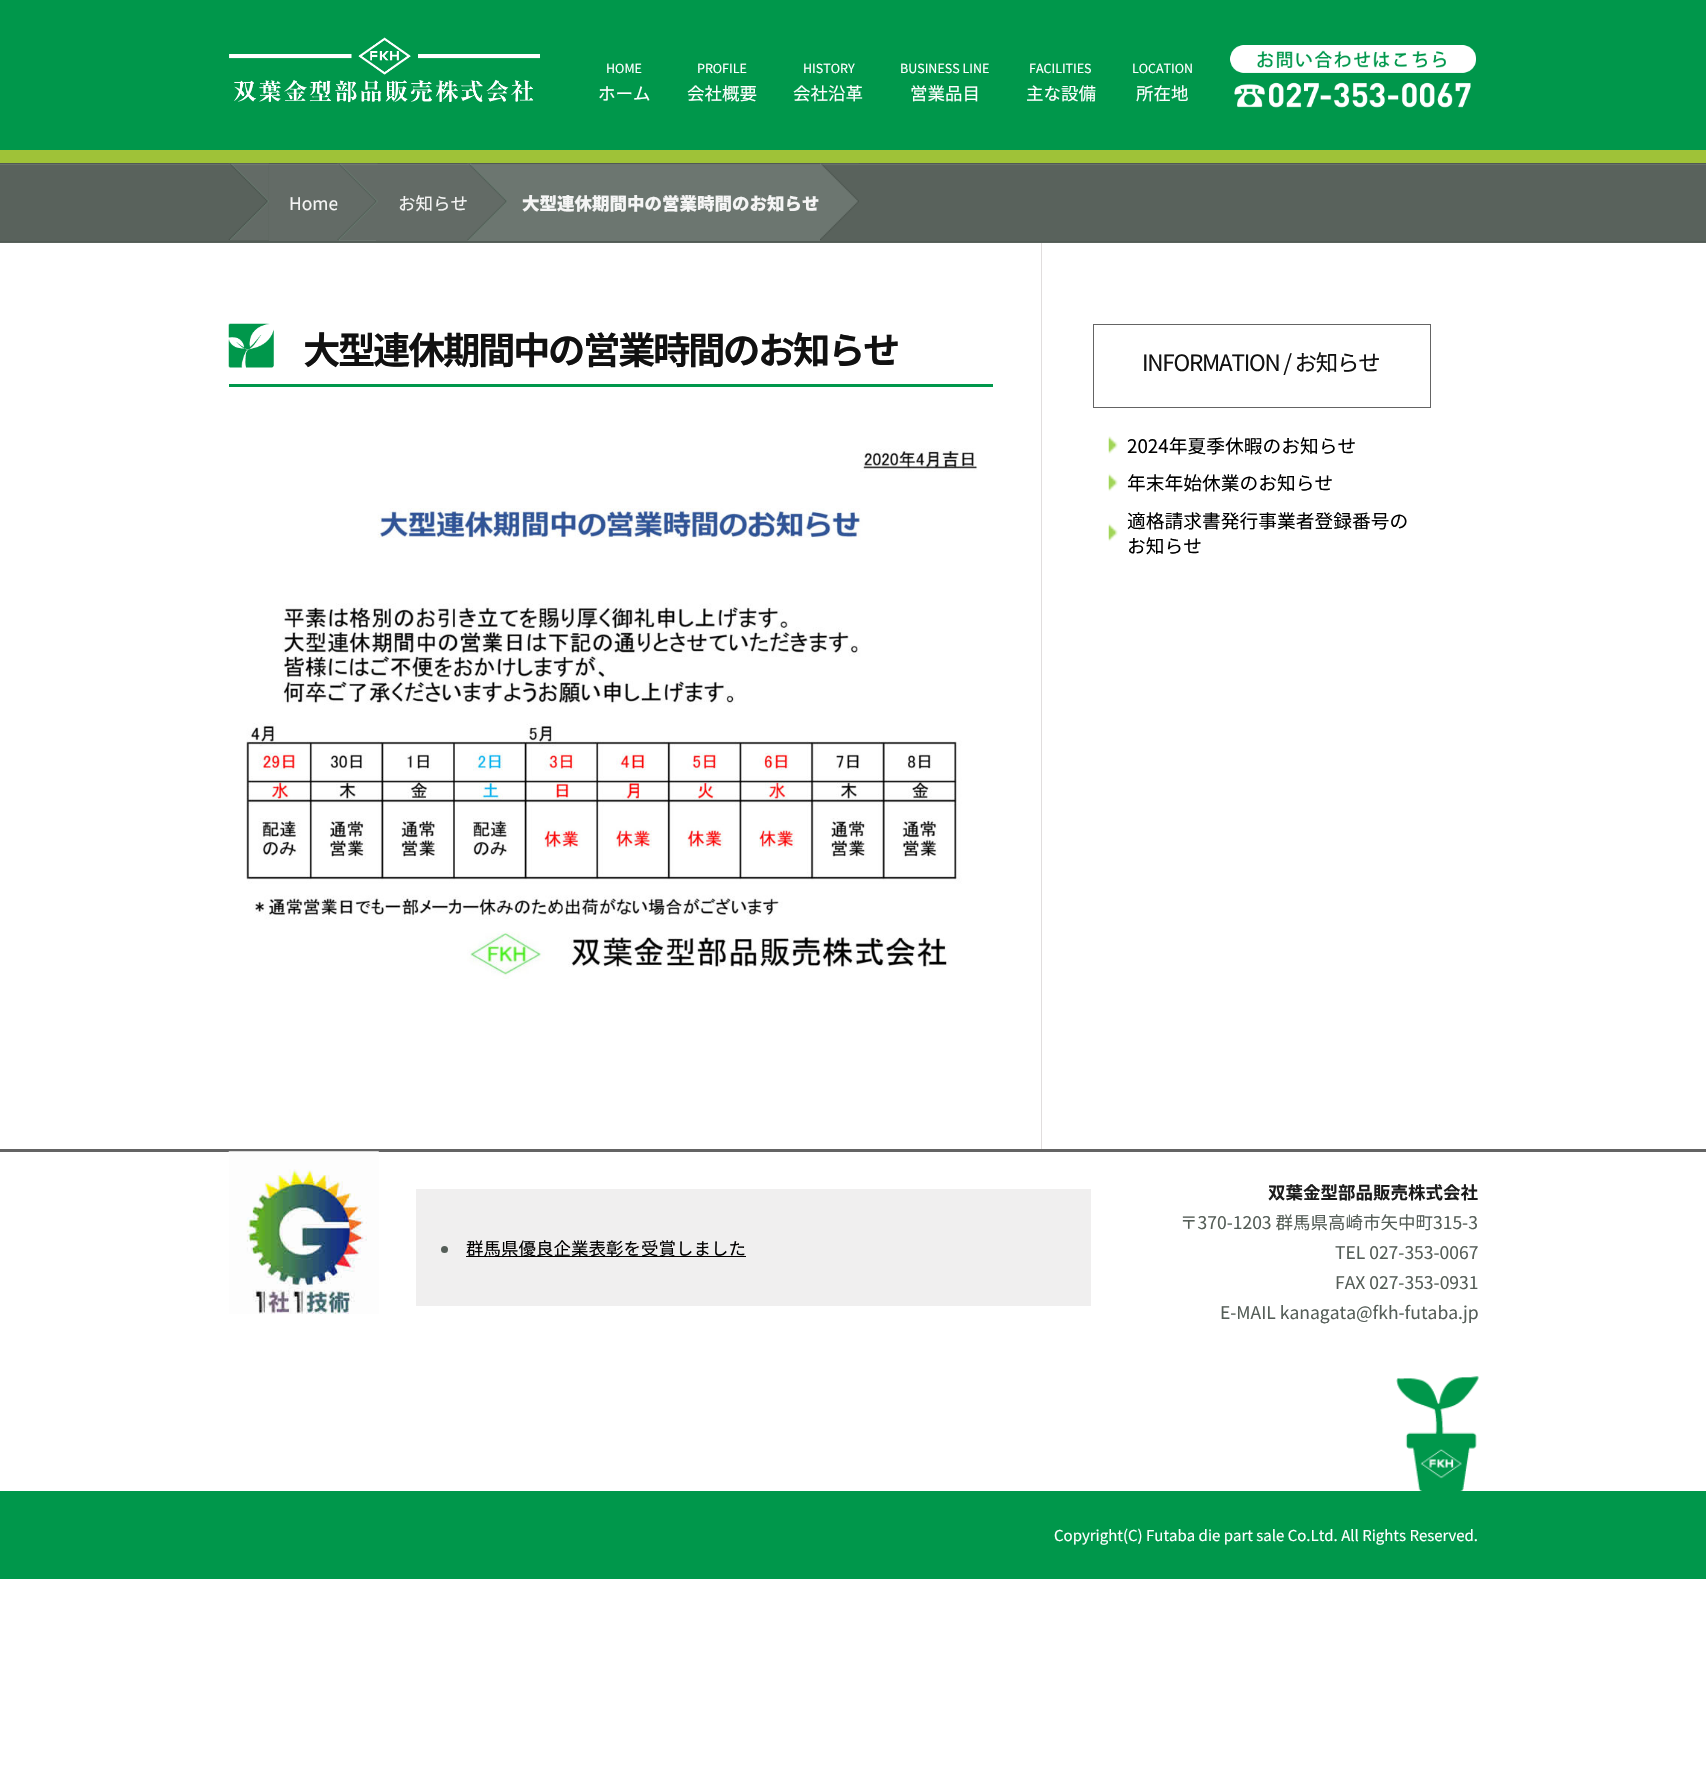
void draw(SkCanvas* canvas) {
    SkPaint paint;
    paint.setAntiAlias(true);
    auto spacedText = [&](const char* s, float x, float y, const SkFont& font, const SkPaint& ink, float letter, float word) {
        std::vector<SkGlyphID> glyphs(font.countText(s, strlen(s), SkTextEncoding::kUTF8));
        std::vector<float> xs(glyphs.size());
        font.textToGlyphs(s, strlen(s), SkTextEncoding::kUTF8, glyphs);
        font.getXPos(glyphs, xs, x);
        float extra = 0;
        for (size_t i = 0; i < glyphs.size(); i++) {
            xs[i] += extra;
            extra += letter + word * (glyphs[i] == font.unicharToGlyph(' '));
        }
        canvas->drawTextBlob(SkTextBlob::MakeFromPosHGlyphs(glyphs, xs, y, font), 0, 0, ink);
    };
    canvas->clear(0xFFFFFFFF);
    paint.setColor(0xFF00974B);
    canvas->drawRect(SkRect::MakeXYWH(0, 0, 1706, 150), paint);
    paint.setColor(0xFF9FC238);
    canvas->drawRect(SkRect::MakeXYWH(0, 150, 1706, 13), paint);
    canvas->drawImageRect(SkImages::DeferredFromEncodedData(SkData::MakeFromFileName("img1.png")), SkRect::MakeXYWH(229, 37, 311, 66), SkSamplingOptions());
    SkFont font1(fontMgr->matchFamilyStyle("Noto Sans JP", SkFontStyle::Normal()), 12.5f);
    font1.setSubpixel(true);
    paint.setColor(0xFFFFFFFF);
    canvas->drawString("HOME", 606, 73, font1, paint);
    SkFont font2(fontMgr->matchFamilyStyle("Noto Sans JP", SkFontStyle::Normal()), 17.5f);
    font2.setSubpixel(true);
    canvas->drawString("ホーム", 598, 100, font2, paint);
    canvas->drawString("PROFILE", 697, 73, font1, paint);
    canvas->drawString("会社概要", 687, 100, font2, paint);
    canvas->drawString("HISTORY", 803, 73, font1, paint);
    canvas->drawString("会社沿革", 793, 100, font2, paint);
    canvas->drawString("BUSINESS LINE", 900, 73, font1, paint);
    canvas->drawString("営業品目", 910, 100, font2, paint);
    canvas->drawString("FACILITIES", 1029, 73, font1, paint);
    canvas->drawString("主な設備", 1026, 100, font2, paint);
    canvas->drawString("LOCATION", 1132, 73, font1, paint);
    canvas->drawString("所在地", 1136, 100, font2, paint);
    canvas->drawImageRect(SkImages::DeferredFromEncodedData(SkData::MakeFromFileName("img2.png")), SkRect::MakeXYWH(1230, 45, 246, 63), SkSamplingOptions());
    paint.setColor(0xFF59625C);
    canvas->drawRect(SkRect::MakeXYWH(0, 165, 1706, 78), paint);
    paint.setColor(0xFF67716A);
    canvas->drawRect(SkRect::MakeXYWH(0, 164, 1706, 1), paint);
    paint.setColor(0xFF515953);
    canvas->drawRect(SkRect::MakeXYWH(0, 163, 1706, 1), paint);
    paint.setColor(0xFF515B55);
    canvas->drawRect(SkRect::MakeXYWH(0, 241, 1706, 1), paint);
    paint.setColor(0xFF6C7670);
    canvas->drawRect(SkRect::MakeXYWH(269, 164, 551, 77), paint);
    canvas->drawImageRect(SkImages::DeferredFromEncodedData(SkData::MakeFromFileName("img3.png")), SkRect::MakeXYWH(228, 163, 41, 77), SkSamplingOptions());
    paint.setColor(0xFF636B66);
    canvas->drawRect(SkRect::MakeXYWH(269, 165, 70, 76), paint);
    paint.setColor(0xFFF5F5F5);
    canvas->drawString("Home", 289, 210, font2, paint);
    paint.setColor(0xFF636B66);
    canvas->drawRect(SkRect::MakeXYWH(376, 165, 92, 76), paint);
    canvas->drawImageRect(SkImages::DeferredFromEncodedData(SkData::MakeFromFileName("img4.png")), SkRect::MakeXYWH(337, 163, 41, 77), SkSamplingOptions());
    paint.setColor(0xFFF5F5F5);
    canvas->drawString("お知らせ", 398, 210, font2, paint);
    canvas->drawImageRect(SkImages::DeferredFromEncodedData(SkData::MakeFromFileName("img5.png")), SkRect::MakeXYWH(467, 163, 40, 77), SkSamplingOptions());
    SkFont font3(fontMgr->matchFamilyStyle("Noto Sans JP", SkFontStyle(900, SkFontStyle::kNormal_Width, SkFontStyle::kUpright_Slant)), 17.5f);
    font3.setSubpixel(true);
    canvas->drawString("大型連休期間中の営業時間のお知らせ", 522, 210, font3, paint);
    canvas->drawImageRect(SkImages::DeferredFromEncodedData(SkData::MakeFromFileName("img6.png")), SkRect::MakeXYWH(820, 163, 39, 77), SkSamplingOptions());
    canvas->drawImageRect(SkImages::DeferredFromEncodedData(SkData::MakeFromFileName("img7.png")), SkRect::MakeXYWH(228, 323, 46, 45), SkSamplingOptions());
    paint.setColor(0xFF00974B);
    canvas->drawRect(SkRect::MakeXYWH(229, 384, 764, 3), paint);
    SkFont font4(fontMgr->matchFamilyStyle("Noto Sans JP", SkFontStyle::Bold()), 37.5f);
    font4.setSubpixel(true);
    paint.setColor(0xFF111111);
    spacedText("大型連休期間中の営業時間のお知らせ", 303, 364, font4, paint, -2.5f, 0);
    canvas->drawImageRect(SkImages::DeferredFromEncodedData(SkData::MakeFromFileName("img8.png")), SkRect::MakeXYWH(246, 448, 732, 531), SkSamplingOptions());
    paint.setColor(0xFFE0DDDD);
    canvas->drawRect(SkRect::MakeXYWH(1041, 243, 1, 906), paint);
    paint.setStyle(SkPaint::kStroke_Style);
    paint.setStrokeWidth(1);
    paint.setColor(0xFF646464);
    canvas->drawRect(SkRect::MakeXYWH(1093.5f, 324.5f, 337, 83), paint);
    SkFont font5(fontMgr->matchFamilyStyle("Noto Sans JP", SkFontStyle::Normal()), 22.5f);
    font5.setSubpixel(true);
    paint.setStyle(SkPaint::kFill_Style);
    paint.setColor(0xFF111111);
    spacedText("INFORMATION / お知らせ", 1142, 371, font5, paint, -1.25f, 0);
    canvas->drawImageRect(SkImages::DeferredFromEncodedData(SkData::MakeFromFileName("img9.png")), SkRect::MakeXYWH(1108, 436, 10, 18), SkSamplingOptions());
    SkFont font6(fontMgr->matchFamilyStyle("Noto Sans JP", SkFontStyle::Normal()), 18.75f);
    font6.setSubpixel(true);
    paint.setColor(0xFF000000);
    canvas->drawString("2024年夏季休暇のお知らせ", 1127, 453, font6, paint);
    canvas->drawImageRect(SkImages::DeferredFromEncodedData(SkData::MakeFromFileName("img10.png")), SkRect::MakeXYWH(1108, 473, 10, 19), SkSamplingOptions());
    canvas->drawString("年末年始休業のお知らせ", 1127, 490, font6, paint);
    canvas->drawImageRect(SkImages::DeferredFromEncodedData(SkData::MakeFromFileName("img10.png")), SkRect::MakeXYWH(1108, 523, 10, 19), SkSamplingOptions());
    canvas->drawString("適格請求書発行事業者登録番号の", 1127, 528, font6, paint);
    canvas->drawString("お知らせ", 1127, 553, font6, paint);
    paint.setColor(0xFF646464);
    canvas->drawRect(SkRect::MakeXYWH(0, 1149, 1706, 3), paint);
    canvas->drawImageRect(SkImages::DeferredFromEncodedData(SkData::MakeFromFileName("img11.png")), SkRect::MakeXYWH(228, 1151, 151, 163), SkSamplingOptions());
    paint.setColor(0xFFF0EFEF);
    canvas->drawRect(SkRect::MakeXYWH(416, 1189, 675, 117), paint);
    paint.setColor(0xFF555E58);
    canvas->drawCircle(444.5f, 1249.5f, 3.5f, paint);
    paint.setColor(0xFF000000);
    canvas->drawRect(SkRect::MakeXYWH(466, 1256, 280, 1), paint);
    canvas->drawString("群馬県優良企業表彰を受賞しました", 466, 1255, font2, paint);
    SkFont font7(fontMgr->matchFamilyStyle("Noto Sans JP", SkFontStyle::Bold()), 17.5f);
    font7.setSubpixel(true);
    paint.setColor(0xFF1C1C1C);
    canvas->drawString("双葉金型部品販売株式会社", 1268, 1199, font7, paint);
    paint.setColor(0xFF555E58);
    canvas->drawString("〒370-1203 群馬県高崎市矢中町315-3", 1180, 1229, font2, paint);
    canvas->drawString("TEL 027-353-0067", 1335, 1259, font2, paint);
    canvas->drawString("FAX 027-353-0931", 1335, 1289, font2, paint);
    canvas->drawString("E-MAIL kanagata@fkh-futaba.jp", 1220, 1319, font2, paint);
    canvas->drawImageRect(SkImages::DeferredFromEncodedData(SkData::MakeFromFileName("img12.png")), SkRect::MakeXYWH(1396, 1376, 83, 115), SkSamplingOptions());
    paint.setColor(0xFF00974B);
    canvas->drawRect(SkRect::MakeXYWH(0, 1491, 1706, 88), paint);
    SkFont font8(fontMgr->matchFamilyStyle("Noto Sans JP", SkFontStyle::Normal()), 15);
    font8.setSubpixel(true);
    paint.setColor(0xFFFFFFFF);
    canvas->drawString("Copyright(C) Futaba die part sale Co.Ltd. All Rights Reserved.", 1054, 1541, font8, paint);
}
